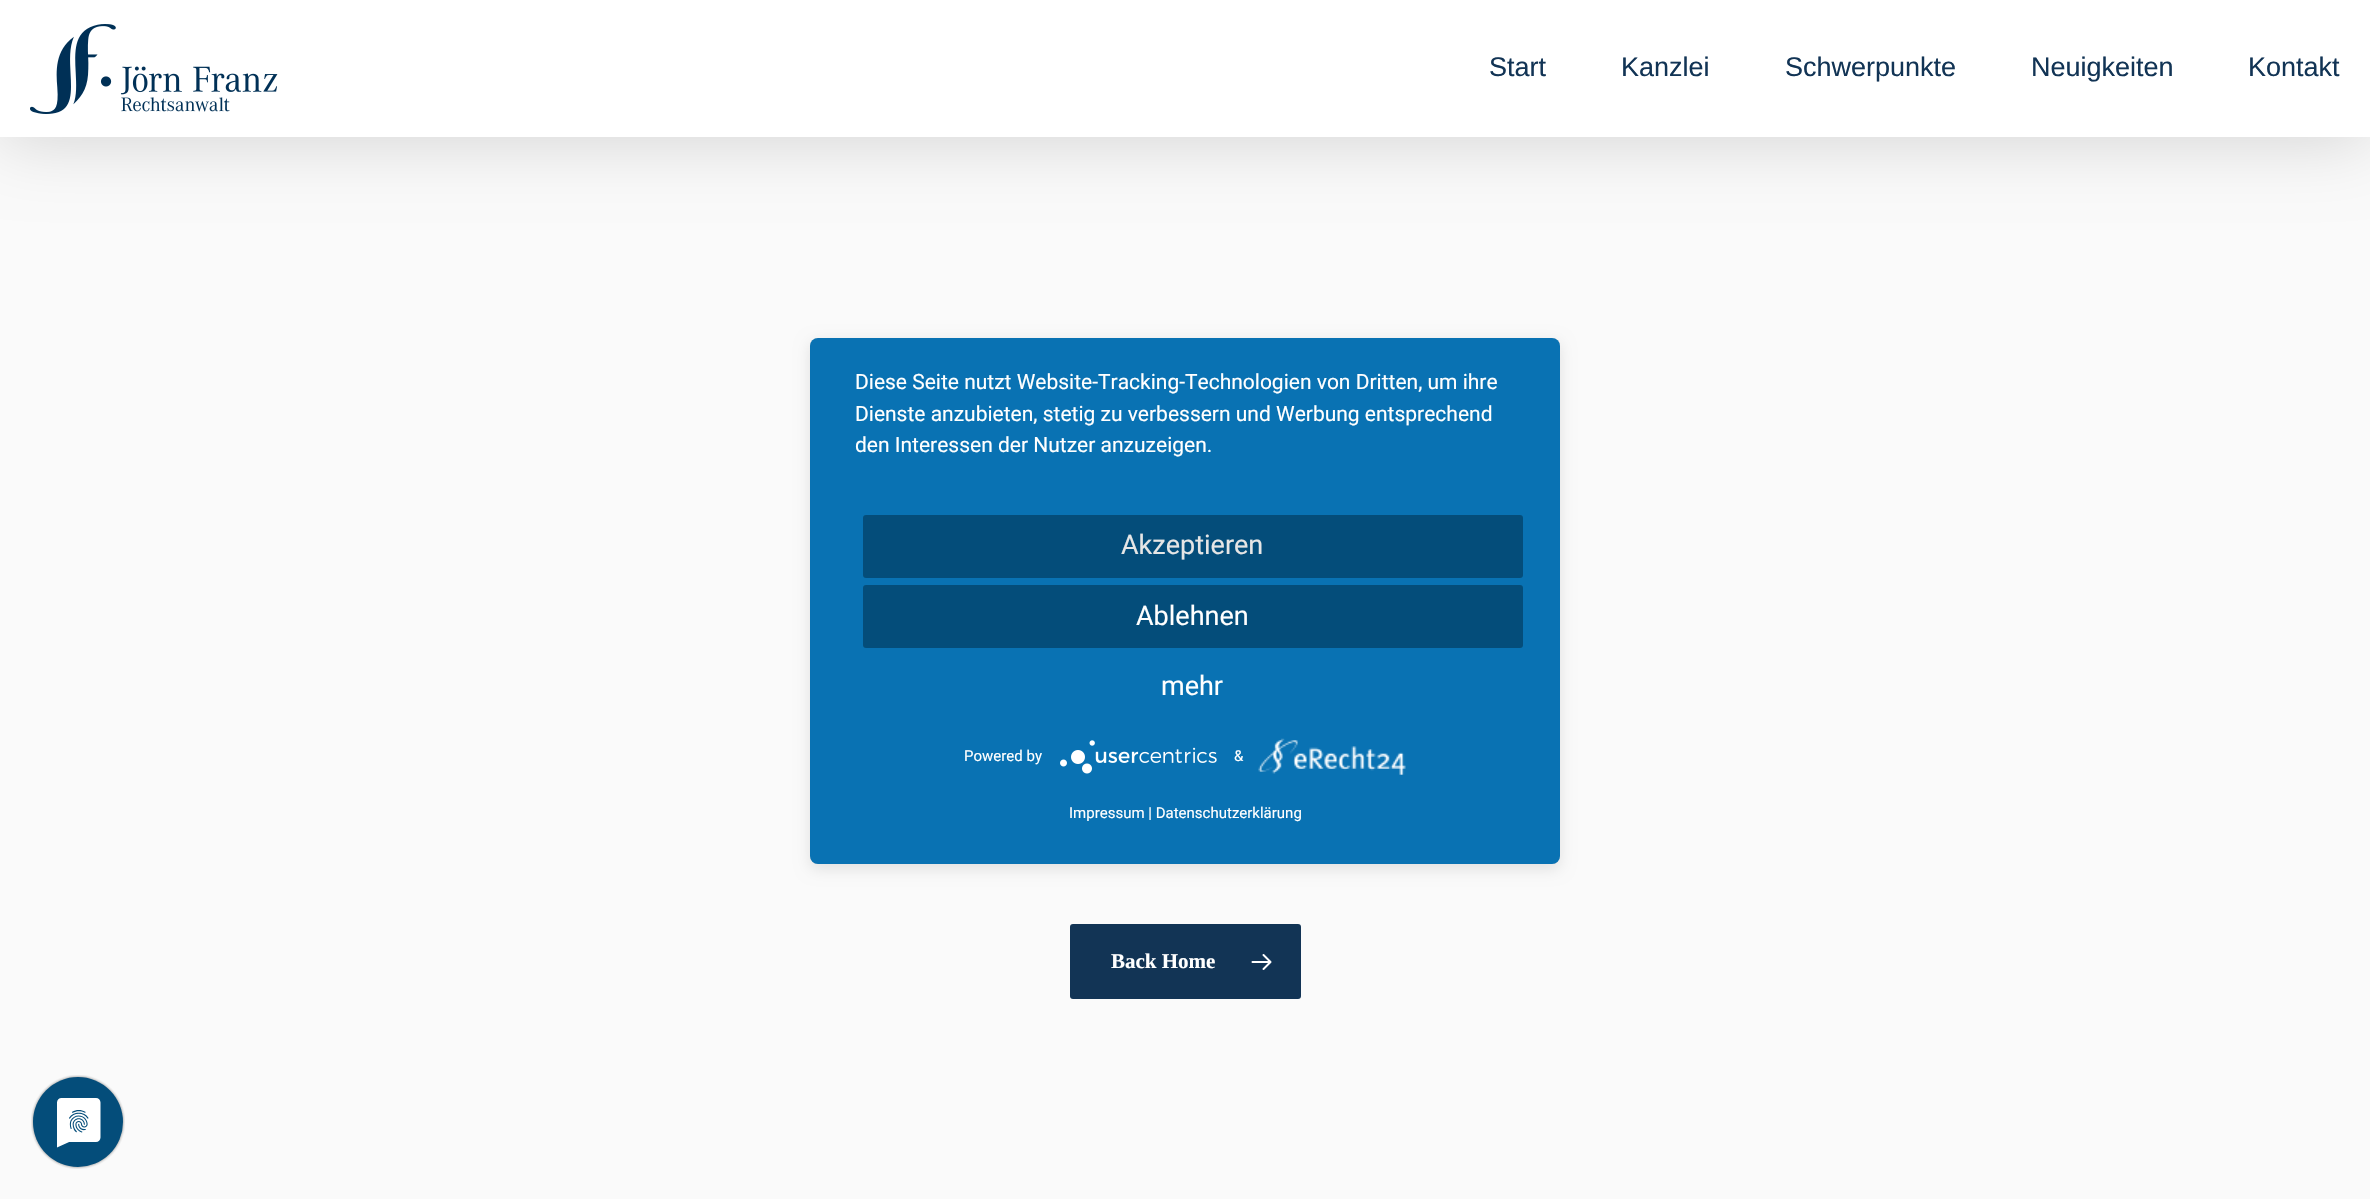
void draw(SkCanvas* canvas) {
    SkPaint paint;
    paint.setAntiAlias(true);
    canvas->clear(0xFFFAFAFA);
    paint.setColor(0x26000000);
    paint.setMaskFilter(SkMaskFilter::MakeBlur(kNormal_SkBlurStyle, 34));
    canvas->drawRect(SkRect::MakeXYWH(0, 5, 2370, 136), paint);
    paint.setMaskFilter(nullptr);
    paint.setColor(0xFFFFFFFF);
    canvas->drawRect(SkRect::MakeXYWH(0, 0, 2370, 137), paint);
    canvas->drawImageRect(SkImages::DeferredFromEncodedData(SkData::MakeFromFileName("img1.png")), SkRect::MakeXYWH(30, 24, 248, 90), SkSamplingOptions());
    SkFont font1(fontMgr->matchFamilyStyle("Liberation Sans", SkFontStyle::Normal()), 27);
    font1.setSubpixel(true);
    paint.setColor(0xFF123455);
    canvas->drawString("Start", 1489, 76, font1, paint);
    canvas->drawString("Kanzlei", 1621, 76, font1, paint);
    canvas->drawString("Schwerpunkte", 1785, 76, font1, paint);
    canvas->drawString("Neuigkeiten", 2031, 76, font1, paint);
    canvas->drawString("Kontakt", 2248, 76, font1, paint);
    canvas->drawRoundRect(SkRect::MakeXYWH(1070, 924, 231, 75), 3, 3, paint);
    SkFont font2(fontMgr->matchFamilyStyle("Liberation Serif", SkFontStyle::Bold()), 21);
    font2.setSubpixel(true);
    paint.setColor(0xFFFFFFFF);
    canvas->drawString("Back Home", 1111, 968, font2, paint);
    canvas->drawImageRect(SkImages::DeferredFromEncodedData(SkData::MakeFromFileName("img2.png")), SkRect::MakeXYWH(1251, 954, 21, 16), SkSamplingOptions());
    paint.setColor(0x1A000000);
    paint.setMaskFilter(SkMaskFilter::MakeBlur(kNormal_SkBlurStyle, 7.5f));
    canvas->drawRoundRect(SkRect::MakeXYWH(810, 342, 750, 527), 8, 8, paint);
    paint.setMaskFilter(nullptr);
    canvas->save();
    canvas->clipPath(SkPathBuilder().moveTo(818, 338).lineTo(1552, 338).cubicTo(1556.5f, 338, 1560, 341.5f, 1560, 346).lineTo(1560, 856).cubicTo(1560, 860.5f, 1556.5f, 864, 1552, 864).lineTo(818, 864).cubicTo(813.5f, 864, 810, 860.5f, 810, 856).lineTo(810, 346).cubicTo(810, 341.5f, 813.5f, 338, 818, 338).close().detach(), true);
    paint.setColor(0x4D000000);
    paint.setMaskFilter(SkMaskFilter::MakeBlur(kNormal_SkBlurStyle, 27));
    canvas->drawRect(SkRect::MakeXYWH(810, 347, 750, 526), paint);
    paint.setMaskFilter(nullptr);
    canvas->restore();
    paint.setColor(0xFF0972B3);
    canvas->drawRoundRect(SkRect::MakeXYWH(810, 338, 750, 526), 8, 8, paint);
    SkFont font3(fontMgr->matchFamilyStyle("Roboto", SkFontStyle::Normal()), 21);
    font3.setSubpixel(true);
    paint.setColor(0xFFFFFFFF);
    canvas->drawString("Diese Seite nutzt Website-Tracking-Technologien von Dritten, um ihre", 855, 389, font3, paint);
    canvas->drawString("Dienste anzubieten, stetig zu verbessern und Werbung entsprechend", 855, 421, font3, paint);
    canvas->drawString("den Interessen der Nutzer anzuzeigen.", 855, 452, font3, paint);
    paint.setColor(0xFF044D7A);
    canvas->drawRoundRect(SkRect::MakeXYWH(863, 515, 660, 63), 3, 3, paint);
    SkFont font4(fontMgr->matchFamilyStyle("Roboto", SkFontStyle::Normal()), 27);
    font4.setSubpixel(true);
    paint.setColor(0xFFE6E6E6);
    canvas->drawString("Akzeptieren", 1121, 554, font4, paint);
    paint.setColor(0xFF044D7A);
    canvas->drawRoundRect(SkRect::MakeXYWH(863, 585, 660, 63), 3, 3, paint);
    paint.setColor(0xFFFFFFFF);
    canvas->drawString("Ablehnen", 1136, 625, font4, paint);
    canvas->drawString("mehr", 1161, 695, font4, paint);
    SkFont font5(fontMgr->matchFamilyStyle("Roboto", SkFontStyle::Normal()), 15);
    font5.setSubpixel(true);
    canvas->drawString("Powered by", 964, 761, font5, paint);
    canvas->drawImageRect(SkImages::DeferredFromEncodedData(SkData::MakeFromFileName("img3.png")), SkRect::MakeXYWH(1060, 740, 157, 34), SkSamplingOptions());
    canvas->drawString("&", 1234, 761, font5, paint);
    canvas->drawImageRect(SkImages::DeferredFromEncodedData(SkData::MakeFromFileName("img4.png")), SkRect::MakeXYWH(1258, 738, 148, 37), SkSamplingOptions());
    canvas->drawString("Impressum | Datenschutzerklärung", 1069, 818, font5, paint);
    canvas->drawImageRect(SkImages::DeferredFromEncodedData(SkData::MakeFromFileName("img5.png")), SkRect::MakeXYWH(31, 1075, 94, 94), SkSamplingOptions());
}
